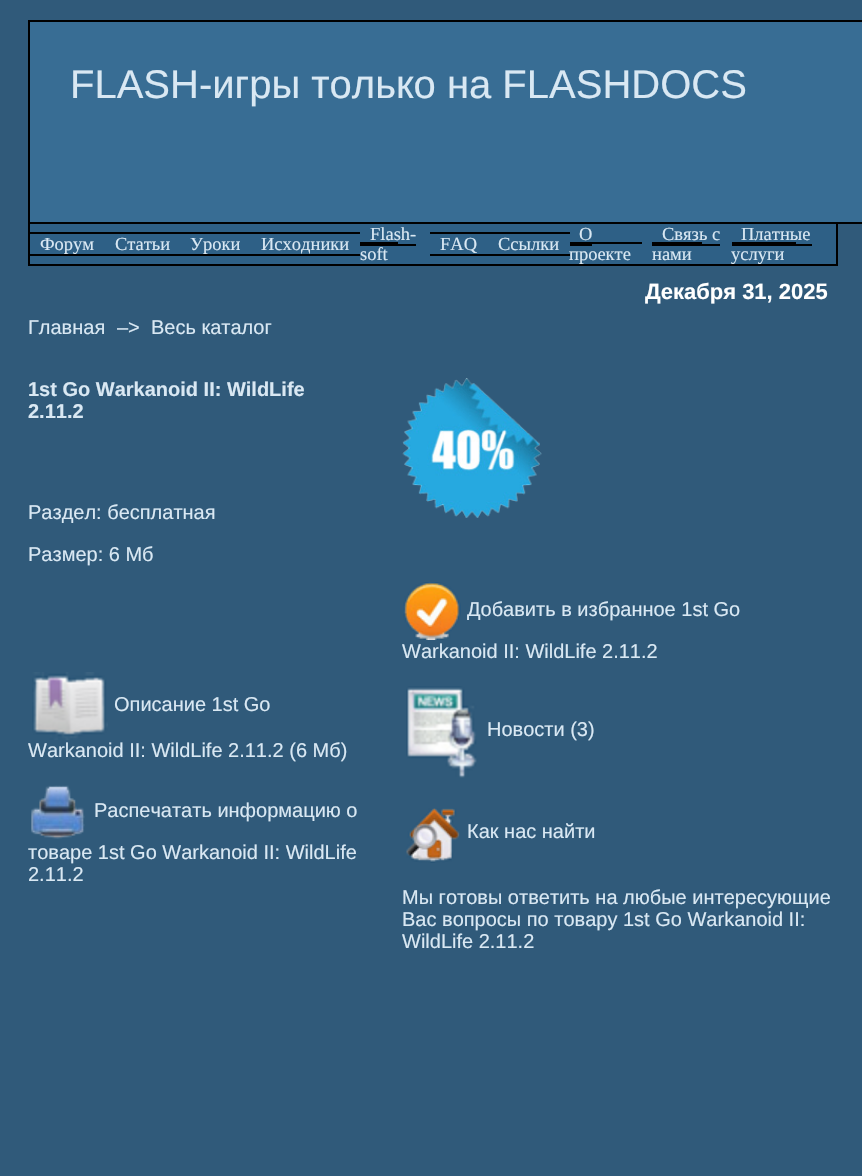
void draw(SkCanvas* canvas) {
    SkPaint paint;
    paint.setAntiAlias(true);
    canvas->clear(0xFF305A7A);
    paint.setColor(0xFF386D94);
    canvas->drawRect(SkRect::MakeXYWH(29, 21, 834, 202), paint);
    paint.setStyle(SkPaint::kStroke_Style);
    paint.setStrokeWidth(2);
    paint.setColor(0xFF000000);
    canvas->drawRect(SkRect::MakeXYWH(29, 21, 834, 202), paint);
    SkFont font1(fontMgr->matchFamilyStyle("Liberation Sans", SkFontStyle::Normal()), 40);
    font1.setSubpixel(true);
    paint.setStyle(SkPaint::kFill_Style);
    paint.setColor(0xFFD9E8F3);
    canvas->drawString("FLASH-игры только на FLASHDOCS", 70, 98, font1, paint);
    paint.setColor(0xFF2E6086);
    canvas->drawRect(SkRect::MakeXYWH(30, 224, 806, 40), paint);
    paint.setColor(0xFF000000);
    canvas->drawRect(SkRect::MakeXYWH(836, 224, 2, 42), paint);
    canvas->drawRect(SkRect::MakeXYWH(28, 264, 810, 2), paint);
    canvas->drawRect(SkRect::MakeXYWH(28, 224, 2, 42), paint);
    SkFont font2(fontMgr->matchFamilyStyle("Liberation Serif", SkFontStyle::Normal()), 18.5f);
    font2.setSubpixel(true);
    paint.setColor(0xFFD9E8F3);
    canvas->drawString("Форум", 40, 250, font2, paint);
    paint.setColor(0xFF000000);
    canvas->drawRect(SkRect::MakeXYWH(30, 232, 330, 2), paint);
    canvas->drawRect(SkRect::MakeXYWH(30, 254, 330, 2), paint);
    paint.setColor(0xFFD9E8F3);
    canvas->drawString("Статьи", 115, 250, font2, paint);
    canvas->drawString("Уроки", 190, 250, font2, paint);
    canvas->drawString("Исходники", 261, 250, font2, paint);
    canvas->drawString("Flash-", 370, 240, font2, paint);
    paint.setColor(0xFF000000);
    canvas->drawRect(SkRect::MakeXYWH(360, 242, 38, 2), paint);
    paint.setColor(0xFFD9E8F3);
    canvas->drawString("soft", 360, 260, font2, paint);
    paint.setColor(0xFF000000);
    canvas->drawRect(SkRect::MakeXYWH(360, 244, 56, 2), paint);
    paint.setColor(0xFFD9E8F3);
    canvas->drawString("FAQ", 440, 250, font2, paint);
    paint.setColor(0xFF000000);
    canvas->drawRect(SkRect::MakeXYWH(430, 232, 140, 2), paint);
    canvas->drawRect(SkRect::MakeXYWH(430, 254, 140, 2), paint);
    paint.setColor(0xFFD9E8F3);
    canvas->drawString("Ссылки", 498, 250, font2, paint);
    canvas->drawString("О", 579, 240, font2, paint);
    paint.setColor(0xFF000000);
    canvas->drawRect(SkRect::MakeXYWH(570, 244, 22, 2), paint);
    canvas->drawRect(SkRect::MakeXYWH(570, 242, 72, 2), paint);
    paint.setColor(0xFFD9E8F3);
    canvas->drawString("проекте", 569, 260, font2, paint);
    canvas->drawString("Связь с", 662, 240, font2, paint);
    paint.setColor(0xFF000000);
    canvas->drawRect(SkRect::MakeXYWH(652, 244, 68, 2), paint);
    canvas->drawRect(SkRect::MakeXYWH(652, 242, 50, 2), paint);
    paint.setColor(0xFFD9E8F3);
    canvas->drawString("нами", 652, 260, font2, paint);
    canvas->drawString("Платные", 741, 240, font2, paint);
    paint.setColor(0xFF000000);
    canvas->drawRect(SkRect::MakeXYWH(732, 244, 80, 2), paint);
    canvas->drawRect(SkRect::MakeXYWH(732, 242, 64, 2), paint);
    paint.setColor(0xFFD9E8F3);
    canvas->drawString("услуги", 731, 260, font2, paint);
    SkFont font3(fontMgr->matchFamilyStyle("Liberation Sans", SkFontStyle::Bold()), 22);
    font3.setSubpixel(true);
    paint.setColor(0xFFFFFFFF);
    canvas->drawString("Декабря 31, 2025", 645, 299, font3, paint);
    SkFont font4(fontMgr->matchFamilyStyle("Liberation Sans", SkFontStyle::Normal()), 20);
    font4.setSubpixel(true);
    paint.setColor(0xFFD9E8F3);
    canvas->drawString("Главная", 28, 334, font4, paint);
    canvas->drawString("–>", 117, 334, font4, paint);
    canvas->drawString("Весь каталог", 151, 334, font4, paint);
    SkFont font5(fontMgr->matchFamilyStyle("Liberation Sans", SkFontStyle::Bold()), 20);
    font5.setSubpixel(true);
    canvas->drawString("1st Go Warkanoid II: WildLife", 28, 396, font5, paint);
    canvas->drawString("2.11.2", 28, 418, font5, paint);
    canvas->drawString("Раздел: бесплатная", 28, 519, font4, paint);
    canvas->drawString("Размер: 6 Мб", 28, 561, font4, paint);
    canvas->drawImageRect(SkImages::DeferredFromEncodedData(SkData::MakeFromFileName("img1.png")), SkRect::MakeXYWH(32, 672, 76, 68), SkSamplingOptions());
    canvas->drawString("Описание 1st Go", 114, 711, font4, paint);
    canvas->drawString("Warkanoid II: WildLife 2.11.2 (6 Мб)", 28, 757, font4, paint);
    canvas->drawImageRect(SkImages::DeferredFromEncodedData(SkData::MakeFromFileName("img2.png")), SkRect::MakeXYWH(31, 785, 54, 54), SkSamplingOptions());
    canvas->drawString("Распечатать информацию о", 94, 817, font4, paint);
    canvas->drawString("товаре 1st Go Warkanoid II: WildLife", 28, 859, font4, paint);
    canvas->drawString("2.11.2", 28, 881, font4, paint);
    canvas->drawImageRect(SkImages::DeferredFromEncodedData(SkData::MakeFromFileName("img3.png")), SkRect::MakeXYWH(402, 378, 140, 140), SkSamplingOptions());
    canvas->drawImageRect(SkImages::DeferredFromEncodedData(SkData::MakeFromFileName("img4.png")), SkRect::MakeXYWH(403, 582, 58, 58), SkSamplingOptions());
    canvas->drawString("Добавить в избранное 1st Go", 467, 616, font4, paint);
    canvas->drawString("Warkanoid II: WildLife 2.11.2", 402, 658, font4, paint);
    canvas->drawImageRect(SkImages::DeferredFromEncodedData(SkData::MakeFromFileName("img5.png")), SkRect::MakeXYWH(406, 686, 71, 92), SkSamplingOptions());
    canvas->drawString("Новости (3)", 487, 736, font4, paint);
    canvas->drawImageRect(SkImages::DeferredFromEncodedData(SkData::MakeFromFileName("img6.png")), SkRect::MakeXYWH(406, 808, 54, 55), SkSamplingOptions());
    canvas->drawString("Как нас найти", 467, 838, font4, paint);
    canvas->drawString("Мы готовы ответить на любые интересующие", 402, 904, font4, paint);
    canvas->drawString("Вас вопросы по товару 1st Go Warkanoid II:", 402, 926, font4, paint);
    canvas->drawString("WildLife 2.11.2", 402, 948, font4, paint);
}
